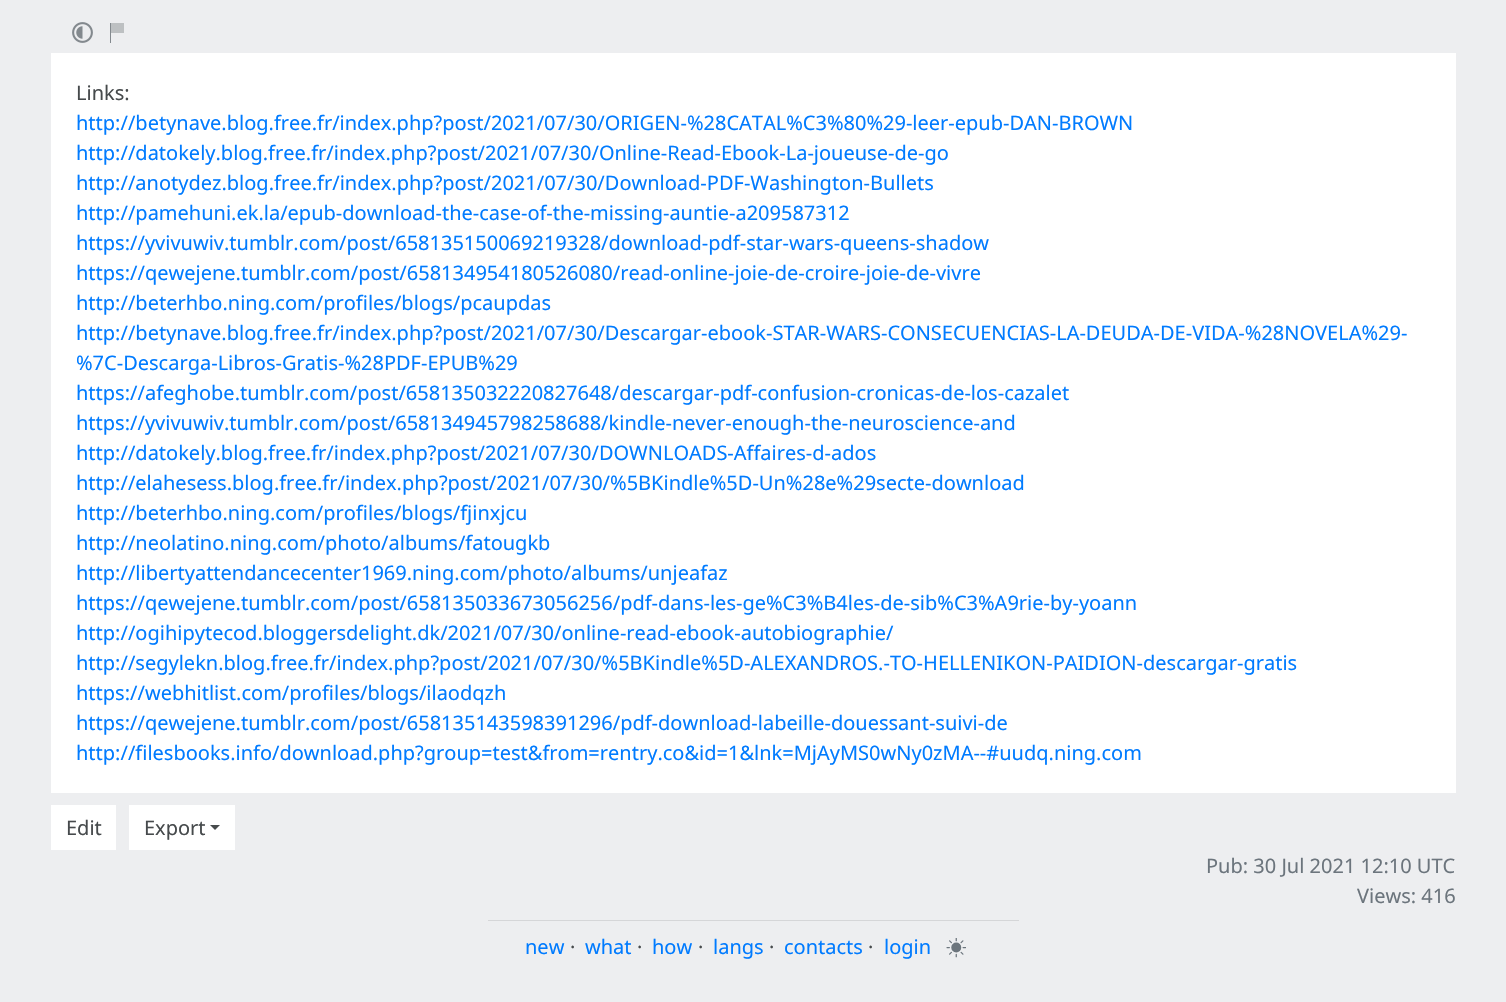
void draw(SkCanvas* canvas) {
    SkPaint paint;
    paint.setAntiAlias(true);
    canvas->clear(0xFFEDEEF0);
    canvas->drawImageRect(SkImages::DeferredFromEncodedData(SkData::MakeFromFileName("img1.png")), SkRect::MakeXYWH(72, 22, 21, 21), SkSamplingOptions());
    paint.setColor(0xFF83898E);
    canvas->drawRect(SkRect::MakeXYWH(110, 23, 1, 20), paint);
    paint.setColor(0xFFBDC0C2);
    canvas->drawRect(SkRect::MakeXYWH(111, 23, 13, 10), paint);
    paint.setColor(0xFFFFFFFF);
    canvas->drawRect(SkRect::MakeXYWH(51, 53, 1405, 740), paint);
    SkFont font1(fontMgr->matchFamilyStyle("Noto Sans", SkFontStyle::Normal()), 20);
    font1.setSubpixel(true);
    paint.setColor(0xFF464A4C);
    canvas->drawString("Links:", 76, 100, font1, paint);
    paint.setColor(0xFF007BFF);
    canvas->drawString("http://betynave.blog.free.fr/index.php?post/2021/07/30/ORIGEN-%28CATAL%C3%80%29-leer-epub-DAN-BROWN", 76, 130, font1, paint);
    canvas->drawString("http://datokely.blog.free.fr/index.php?post/2021/07/30/Online-Read-Ebook-La-joueuse-de-go", 76, 160, font1, paint);
    canvas->drawString("http://anotydez.blog.free.fr/index.php?post/2021/07/30/Download-PDF-Washington-Bullets", 76, 190, font1, paint);
    canvas->drawString("http://pamehuni.ek.la/epub-download-the-case-of-the-missing-auntie-a209587312", 76, 220, font1, paint);
    canvas->drawString("https://yvivuwiv.tumblr.com/post/658135150069219328/download-pdf-star-wars-queens-shadow", 76, 250, font1, paint);
    canvas->drawString("https://qewejene.tumblr.com/post/658134954180526080/read-online-joie-de-croire-joie-de-vivre", 76, 280, font1, paint);
    canvas->drawString("http://beterhbo.ning.com/profiles/blogs/pcaupdas", 76, 310, font1, paint);
    canvas->drawString("http://betynave.blog.free.fr/index.php?post/2021/07/30/Descargar-ebook-STAR-WARS-CONSECUENCIAS-LA-DEUDA-DE-VIDA-%28NOVELA%29-", 76, 340, font1, paint);
    canvas->drawString("%7C-Descarga-Libros-Gratis-%28PDF-EPUB%29", 76, 370, font1, paint);
    canvas->drawString("https://afeghobe.tumblr.com/post/658135032220827648/descargar-pdf-confusion-cronicas-de-los-cazalet", 76, 400, font1, paint);
    canvas->drawString("https://yvivuwiv.tumblr.com/post/658134945798258688/kindle-never-enough-the-neuroscience-and", 76, 430, font1, paint);
    canvas->drawString("http://datokely.blog.free.fr/index.php?post/2021/07/30/DOWNLOADS-Affaires-d-ados", 76, 460, font1, paint);
    canvas->drawString("http://elahesess.blog.free.fr/index.php?post/2021/07/30/%5BKindle%5D-Un%28e%29secte-download", 76, 490, font1, paint);
    canvas->drawString("http://beterhbo.ning.com/profiles/blogs/fjinxjcu", 76, 520, font1, paint);
    canvas->drawString("http://neolatino.ning.com/photo/albums/fatougkb", 76, 550, font1, paint);
    canvas->drawString("http://libertyattendancecenter1969.ning.com/photo/albums/unjeafaz", 76, 580, font1, paint);
    canvas->drawString("https://qewejene.tumblr.com/post/658135033673056256/pdf-dans-les-ge%C3%B4les-de-sib%C3%A9rie-by-yoann", 76, 610, font1, paint);
    canvas->drawString("http://ogihipytecod.bloggersdelight.dk/2021/07/30/online-read-ebook-autobiographie/", 76, 640, font1, paint);
    canvas->drawString("http://segylekn.blog.free.fr/index.php?post/2021/07/30/%5BKindle%5D-ALEXANDROS.-TO-HELLENIKON-PAIDION-descargar-gratis", 76, 670, font1, paint);
    canvas->drawString("https://webhitlist.com/profiles/blogs/ilaodqzh", 76, 700, font1, paint);
    canvas->drawString("https://qewejene.tumblr.com/post/658135143598391296/pdf-download-labeille-douessant-suivi-de", 76, 730, font1, paint);
    canvas->drawString("http://filesbooks.info/download.php?group=test&from=rentry.co&id=1&lnk=MjAyMS0wNy0zMA--#uudq.ning.com", 76, 760, font1, paint);
    paint.setColor(0xFFFFFFFF);
    canvas->drawRect(SkRect::MakeXYWH(51, 805, 65, 45), paint);
    paint.setColor(0xFF464A4C);
    canvas->drawString("Edit", 66, 835, font1, paint);
    paint.setColor(0xFFFFFFFF);
    canvas->drawRect(SkRect::MakeXYWH(129, 805, 106, 45), paint);
    paint.setColor(0xFF464A4C);
    canvas->drawString("Export", 144, 835, font1, paint);
    canvas->drawPath(SkPathBuilder().moveTo(210, 825).lineTo(220, 825).lineTo(215, 830).close().detach(), paint);
    paint.setColor(0xFF6C757D);
    canvas->drawString("Pub: 30 Jul 2021 12:10 UTC", 1206, 873, font1, paint);
    canvas->drawString("Views: 416", 1357, 903, font1, paint);
    paint.setColor(0xFFD5D6D8);
    canvas->drawRect(SkRect::MakeXYWH(488, 920, 531, 1), paint);
    paint.setColor(0xFF007BFF);
    canvas->drawString("new", 525, 954, font1, paint);
    paint.setColor(0xFF464A4C);
    canvas->drawString("·", 570, 954, font1, paint);
    paint.setColor(0xFF007BFF);
    canvas->drawString("what", 585, 954, font1, paint);
    paint.setColor(0xFF464A4C);
    canvas->drawString("·", 637, 954, font1, paint);
    paint.setColor(0xFF007BFF);
    canvas->drawString("how", 652, 954, font1, paint);
    paint.setColor(0xFF464A4C);
    canvas->drawString("·", 698, 954, font1, paint);
    paint.setColor(0xFF007BFF);
    canvas->drawString("langs", 713, 954, font1, paint);
    paint.setColor(0xFF464A4C);
    canvas->drawString("·", 769, 954, font1, paint);
    paint.setColor(0xFF007BFF);
    canvas->drawString("contacts", 784, 954, font1, paint);
    paint.setColor(0xFF464A4C);
    canvas->drawString("·", 868, 954, font1, paint);
    paint.setColor(0xFF007BFF);
    canvas->drawString("login", 884, 954, font1, paint);
    canvas->drawImageRect(SkImages::DeferredFromEncodedData(SkData::MakeFromFileName("img2.png")), SkRect::MakeXYWH(946, 938, 20, 20), SkSamplingOptions());
}
